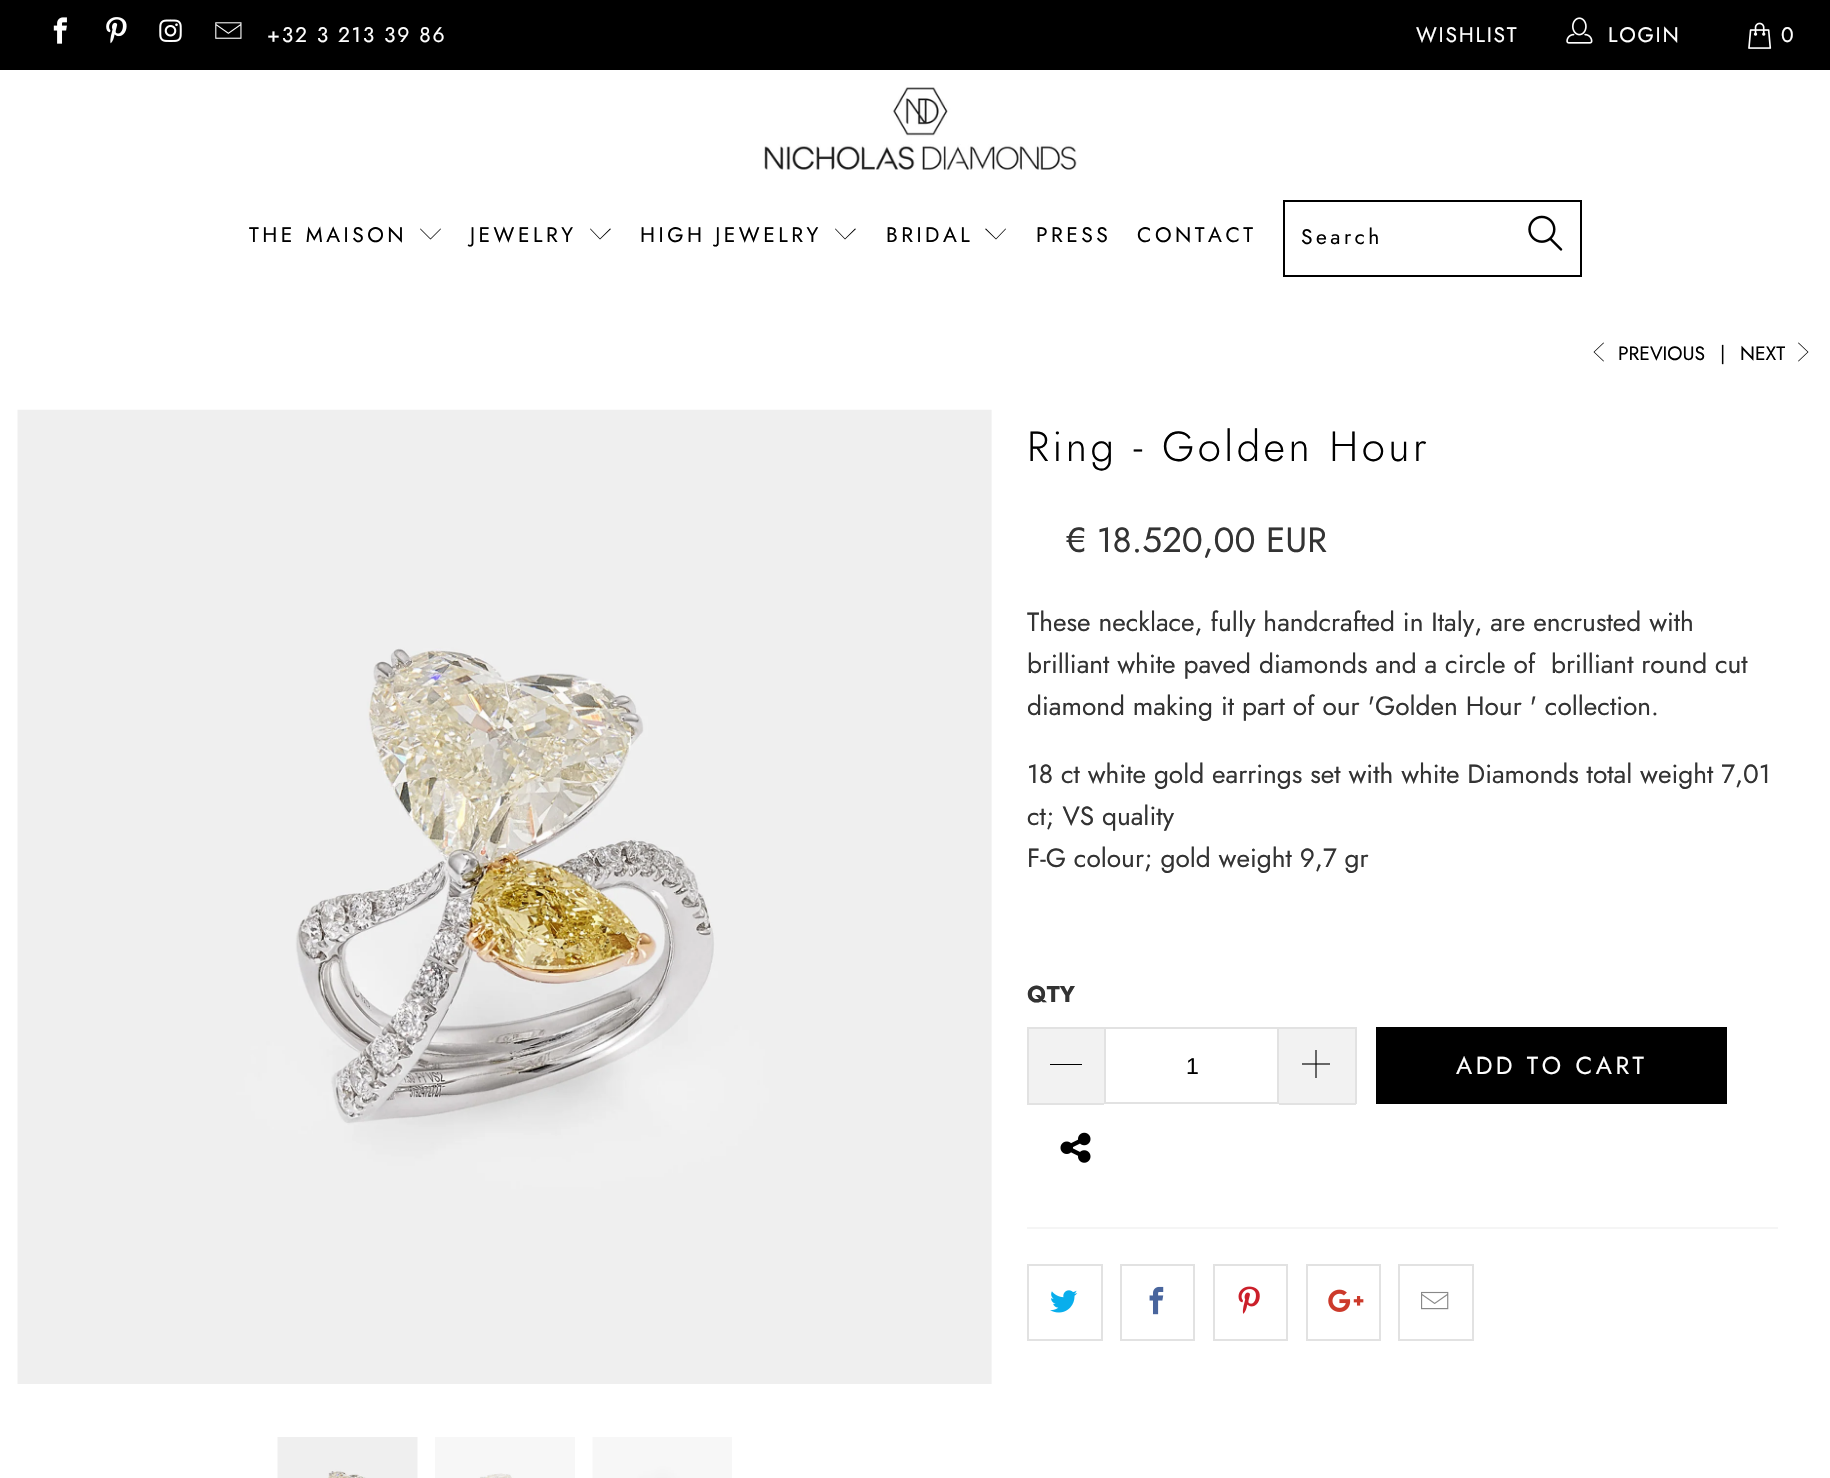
void draw(SkCanvas* canvas) {
    SkPaint paint;
    paint.setAntiAlias(true);
    auto spacedText = [&](const char* s, float x, float y, const SkFont& font, const SkPaint& ink, float letter, float word) {
        std::vector<SkGlyphID> glyphs(font.countText(s, strlen(s), SkTextEncoding::kUTF8));
        std::vector<float> xs(glyphs.size());
        font.textToGlyphs(s, strlen(s), SkTextEncoding::kUTF8, glyphs);
        font.getXPos(glyphs, xs, x);
        float extra = 0;
        for (size_t i = 0; i < glyphs.size(); i++) {
            xs[i] += extra;
            extra += letter + word * (glyphs[i] == font.unicharToGlyph(' '));
        }
        canvas->drawTextBlob(SkTextBlob::MakeFromPosHGlyphs(glyphs, xs, y, font), 0, 0, ink);
    };
    canvas->clear(0xFFFFFFFF);
    paint.setColor(0xFF000000);
    canvas->drawRect(SkRect::MakeXYWH(0, 0, 1830, 70), paint);
    canvas->drawImageRect(SkImages::DeferredFromEncodedData(SkData::MakeFromFileName("img1.png")), SkRect::MakeXYWH(53, 17, 14, 27), SkSamplingOptions());
    canvas->drawImageRect(SkImages::DeferredFromEncodedData(SkData::MakeFromFileName("img2.png")), SkRect::MakeXYWH(106, 17, 21, 27), SkSamplingOptions());
    canvas->drawImageRect(SkImages::DeferredFromEncodedData(SkData::MakeFromFileName("img3.png")), SkRect::MakeXYWH(159, 19, 23, 23), SkSamplingOptions());
    canvas->drawImageRect(SkImages::DeferredFromEncodedData(SkData::MakeFromFileName("img4.png")), SkRect::MakeXYWH(215, 22, 27, 17), SkSamplingOptions());
    SkFont font1(fontMgr->matchFamilyStyle("Jost", SkFontStyle::Normal()), 21);
    font1.setSubpixel(true);
    paint.setColor(0xFFFFFFFF);
    spacedText("+32 3 213 39 86", 267, 42, font1, paint, 1.75f, 0);
    spacedText("WISHLIST", 1416, 42, font1, paint, 1.75f, 0);
    canvas->drawImageRect(SkImages::DeferredFromEncodedData(SkData::MakeFromFileName("img5.png")), SkRect::MakeXYWH(1566, 17, 27, 27), SkSamplingOptions());
    spacedText("LOGIN", 1608, 42, font1, paint, 1.75f, 0);
    canvas->drawImageRect(SkImages::DeferredFromEncodedData(SkData::MakeFromFileName("img6.png")), SkRect::MakeXYWH(1748, 22, 24, 27), SkSamplingOptions());
    spacedText("0", 1781, 42, font1, paint, 1.75f, 0);
    canvas->drawImageRect(SkImages::DeferredFromEncodedData(SkData::MakeFromFileName("img7.png")), SkRect::MakeXYWH(764, 87, 313, 83), SkSamplingOptions());
    paint.setColor(0xFF000000);
    spacedText("THE MAISON", 249, 242, font1, paint, 3.5f, 0);
    canvas->drawPath(SkPathBuilder().moveTo(430.5f, 239.5f).lineTo(420, 229).lineTo(420.5f, 228.5f).lineTo(430.5f, 238.5f).lineTo(440.5f, 228.5f).lineTo(441, 229).close().detach(), paint);
    spacedText("JEWELRY", 470, 242, font1, paint, 3.5f, 0);
    canvas->drawPath(SkPathBuilder().moveTo(600, 239.5f).lineTo(590, 229).lineTo(590.5f, 228.5f).lineTo(600, 238.5f).lineTo(610, 228.5f).lineTo(611, 229).close().detach(), paint);
    spacedText("HIGH JEWELRY", 640, 242, font1, paint, 3.5f, 0);
    canvas->drawPath(SkPathBuilder().moveTo(845, 239.5f).lineTo(835, 229).lineTo(835.5f, 228.5f).lineTo(845, 238.5f).lineTo(855, 228.5f).lineTo(856, 229).close().detach(), paint);
    spacedText("BRIDAL", 886, 242, font1, paint, 3.5f, 0);
    canvas->drawPath(SkPathBuilder().moveTo(996, 239.5f).lineTo(985, 229).lineTo(986, 228.5f).lineTo(996, 238.5f).lineTo(1005.5f, 228.5f).lineTo(1006, 229).close().detach(), paint);
    spacedText("PRESS", 1036, 242, font1, paint, 3.5f, 0);
    spacedText("CONTACT", 1137, 242, font1, paint, 3.5f, 0);
    paint.setStyle(SkPaint::kStroke_Style);
    paint.setStrokeWidth(2);
    canvas->drawRect(SkRect::MakeXYWH(1284, 201, 297, 75), paint);
    paint.setStyle(SkPaint::kFill_Style);
    spacedText("Search", 1301, 244, font1, paint, 3.5f, 0);
    canvas->drawImageRect(SkImages::DeferredFromEncodedData(SkData::MakeFromFileName("img8.png")), SkRect::MakeXYWH(1528, 215, 35, 36), SkSamplingOptions());
    canvas->drawPath(SkPathBuilder().moveTo(1603.5f, 361.5f).lineTo(1593.5f, 352).lineTo(1603.5f, 342.5f).lineTo(1604, 343).lineTo(1594.5f, 352).lineTo(1604, 361).close().detach(), paint);
    SkFont font2(fontMgr->matchFamilyStyle("Jost", SkFontStyle::Normal()), 19.25f);
    font2.setSubpixel(true);
    canvas->drawString("PREVIOUS", 1618, 360, font2, paint);
    canvas->drawString("|", 1720, 360, font2, paint);
    canvas->drawString("NEXT", 1740, 360, font2, paint);
    canvas->drawPath(SkPathBuilder().moveTo(1798.5f, 361.5f).lineTo(1798, 361).lineTo(1807.5f, 352).lineTo(1798, 343).lineTo(1798.5f, 342.5f).lineTo(1808.5f, 352).close().detach(), paint);
    canvas->drawImageRect(SkImages::DeferredFromEncodedData(SkData::MakeFromFileName("img9.png")), SkRect::MakeXYWH(17, 409, 975, 975), SkSamplingOptions());
    canvas->drawImageRect(SkImages::DeferredFromEncodedData(SkData::MakeFromFileName("img10.png")), SkRect::MakeXYWH(277, 1437, 141, 41), SkSamplingOptions());
    canvas->drawImageRect(SkImages::DeferredFromEncodedData(SkData::MakeFromFileName("img11.png")), SkRect::MakeXYWH(435, 1437, 140, 41), SkSamplingOptions());
    canvas->drawImageRect(SkImages::DeferredFromEncodedData(SkData::MakeFromFileName("img12.png")), SkRect::MakeXYWH(592, 1437, 140, 41), SkSamplingOptions());
    SkFont font3(fontMgr->matchFamilyStyle("Jost", SkFontStyle(300, SkFontStyle::kNormal_Width, SkFontStyle::kUpright_Slant)), 42);
    font3.setSubpixel(true);
    spacedText("Ring - Golden Hour", 1027, 461, font3, paint, 3.5f, 0);
    SkFont font4(fontMgr->matchFamilyStyle("Jost", SkFontStyle::Normal()), 35);
    font4.setSubpixel(true);
    paint.setColor(0xFF333333);
    canvas->drawString("€ 18.520,00 EUR", 1066, 552, font4, paint);
    SkFont font5(fontMgr->matchFamilyStyle("Jost", SkFontStyle::Normal()), 26.25f);
    font5.setSubpixel(true);
    canvas->drawString("These necklace, fully handcrafted in Italy, are encrusted with", 1027, 631, font5, paint);
    canvas->drawString("brilliant white paved diamonds and a circle of  brilliant round cut", 1027, 673, font5, paint);
    canvas->drawString("diamond making it part of our 'Golden Hour ' collection.", 1027, 715, font5, paint);
    canvas->drawString("18 ct white gold earrings set with white Diamonds total weight 7,01", 1027, 783, font5, paint);
    canvas->drawString("ct; VS quality", 1027, 825, font5, paint);
    canvas->drawString("F-G colour; gold weight 9,7 gr", 1027, 867, font5, paint);
    SkFont font6(fontMgr->matchFamilyStyle("Jost", SkFontStyle::Bold()), 23);
    font6.setSubpixel(true);
    canvas->drawString("QTY", 1027, 1002, font6, paint);
    paint.setColor(0xFFF2F2F2);
    canvas->drawRect(SkRect::MakeXYWH(1029, 1029, 75, 74), paint);
    paint.setColor(0xFFE2E2E2);
    canvas->drawRect(SkRect::MakeXYWH(1027, 1027, 77, 2), paint);
    canvas->drawRect(SkRect::MakeXYWH(1027, 1103, 77, 2), paint);
    canvas->drawRect(SkRect::MakeXYWH(1027, 1027, 2, 77), paint);
    paint.setColor(0xFF000000);
    canvas->drawRect(SkRect::MakeXYWH(1050, 1064, 32, 1), paint);
    paint.setStyle(SkPaint::kStroke_Style);
    paint.setColor(0xFFE2E2E2);
    canvas->drawRect(SkRect::MakeXYWH(1105, 1028, 173, 75), paint);
    SkFont font7(fontMgr->matchFamilyStyle("Liberation Sans", SkFontStyle::Normal()), 23);
    font7.setSubpixel(true);
    paint.setStyle(SkPaint::kFill_Style);
    paint.setColor(0xFF000000);
    canvas->drawString("1", 1186, 1074, font7, paint);
    paint.setColor(0xFFF2F2F2);
    canvas->drawRect(SkRect::MakeXYWH(1279, 1029, 76, 74), paint);
    paint.setColor(0xFFE2E2E2);
    canvas->drawRect(SkRect::MakeXYWH(1279, 1027, 77, 2), paint);
    canvas->drawRect(SkRect::MakeXYWH(1355, 1027, 2, 77), paint);
    canvas->drawRect(SkRect::MakeXYWH(1279, 1103, 77, 2), paint);
    canvas->drawImageRect(SkImages::DeferredFromEncodedData(SkData::MakeFromFileName("img13.png")), SkRect::MakeXYWH(1302, 1050, 28, 28), SkSamplingOptions());
    paint.setColor(0xFF000000);
    canvas->drawRect(SkRect::MakeXYWH(1376, 1027, 351, 77), paint);
    SkFont font8(fontMgr->matchFamilyStyle("Jost", SkFontStyle::Normal()), 24.5f);
    font8.setSubpixel(true);
    paint.setColor(0xFFFFFFFF);
    spacedText("ADD TO CART", 1456, 1074, font8, paint, 3.5f, 0);
    canvas->drawImageRect(SkImages::DeferredFromEncodedData(SkData::MakeFromFileName("img14.png")), SkRect::MakeXYWH(1060, 1132, 31, 31), SkSamplingOptions());
    paint.setColor(0xFFF5F5F5);
    canvas->drawRect(SkRect::MakeXYWH(1027, 1227, 751, 2), paint);
    paint.setStyle(SkPaint::kStroke_Style);
    paint.setColor(0xFFE2E2E2);
    canvas->drawRect(SkRect::MakeXYWH(1028, 1265, 74, 75), paint);
    canvas->drawImageRect(SkImages::DeferredFromEncodedData(SkData::MakeFromFileName("img15.png")), SkRect::MakeXYWH(1050, 1290, 28, 23), SkSamplingOptions());
    canvas->drawRect(SkRect::MakeXYWH(1121, 1265, 73, 75), paint);
    canvas->drawImageRect(SkImages::DeferredFromEncodedData(SkData::MakeFromFileName("img16.png")), SkRect::MakeXYWH(1149, 1286, 15, 29), SkSamplingOptions());
    canvas->drawRect(SkRect::MakeXYWH(1214, 1265, 73, 75), paint);
    canvas->drawImageRect(SkImages::DeferredFromEncodedData(SkData::MakeFromFileName("img17.png")), SkRect::MakeXYWH(1238, 1286, 22, 28), SkSamplingOptions());
    canvas->drawRect(SkRect::MakeXYWH(1307, 1265, 73, 75), paint);
    canvas->drawImageRect(SkImages::DeferredFromEncodedData(SkData::MakeFromFileName("img18.png")), SkRect::MakeXYWH(1328, 1289, 36, 23), SkSamplingOptions());
    canvas->drawRect(SkRect::MakeXYWH(1399, 1265, 74, 75), paint);
    canvas->drawImageRect(SkImages::DeferredFromEncodedData(SkData::MakeFromFileName("img19.png")), SkRect::MakeXYWH(1421, 1291, 28, 19), SkSamplingOptions());
}
